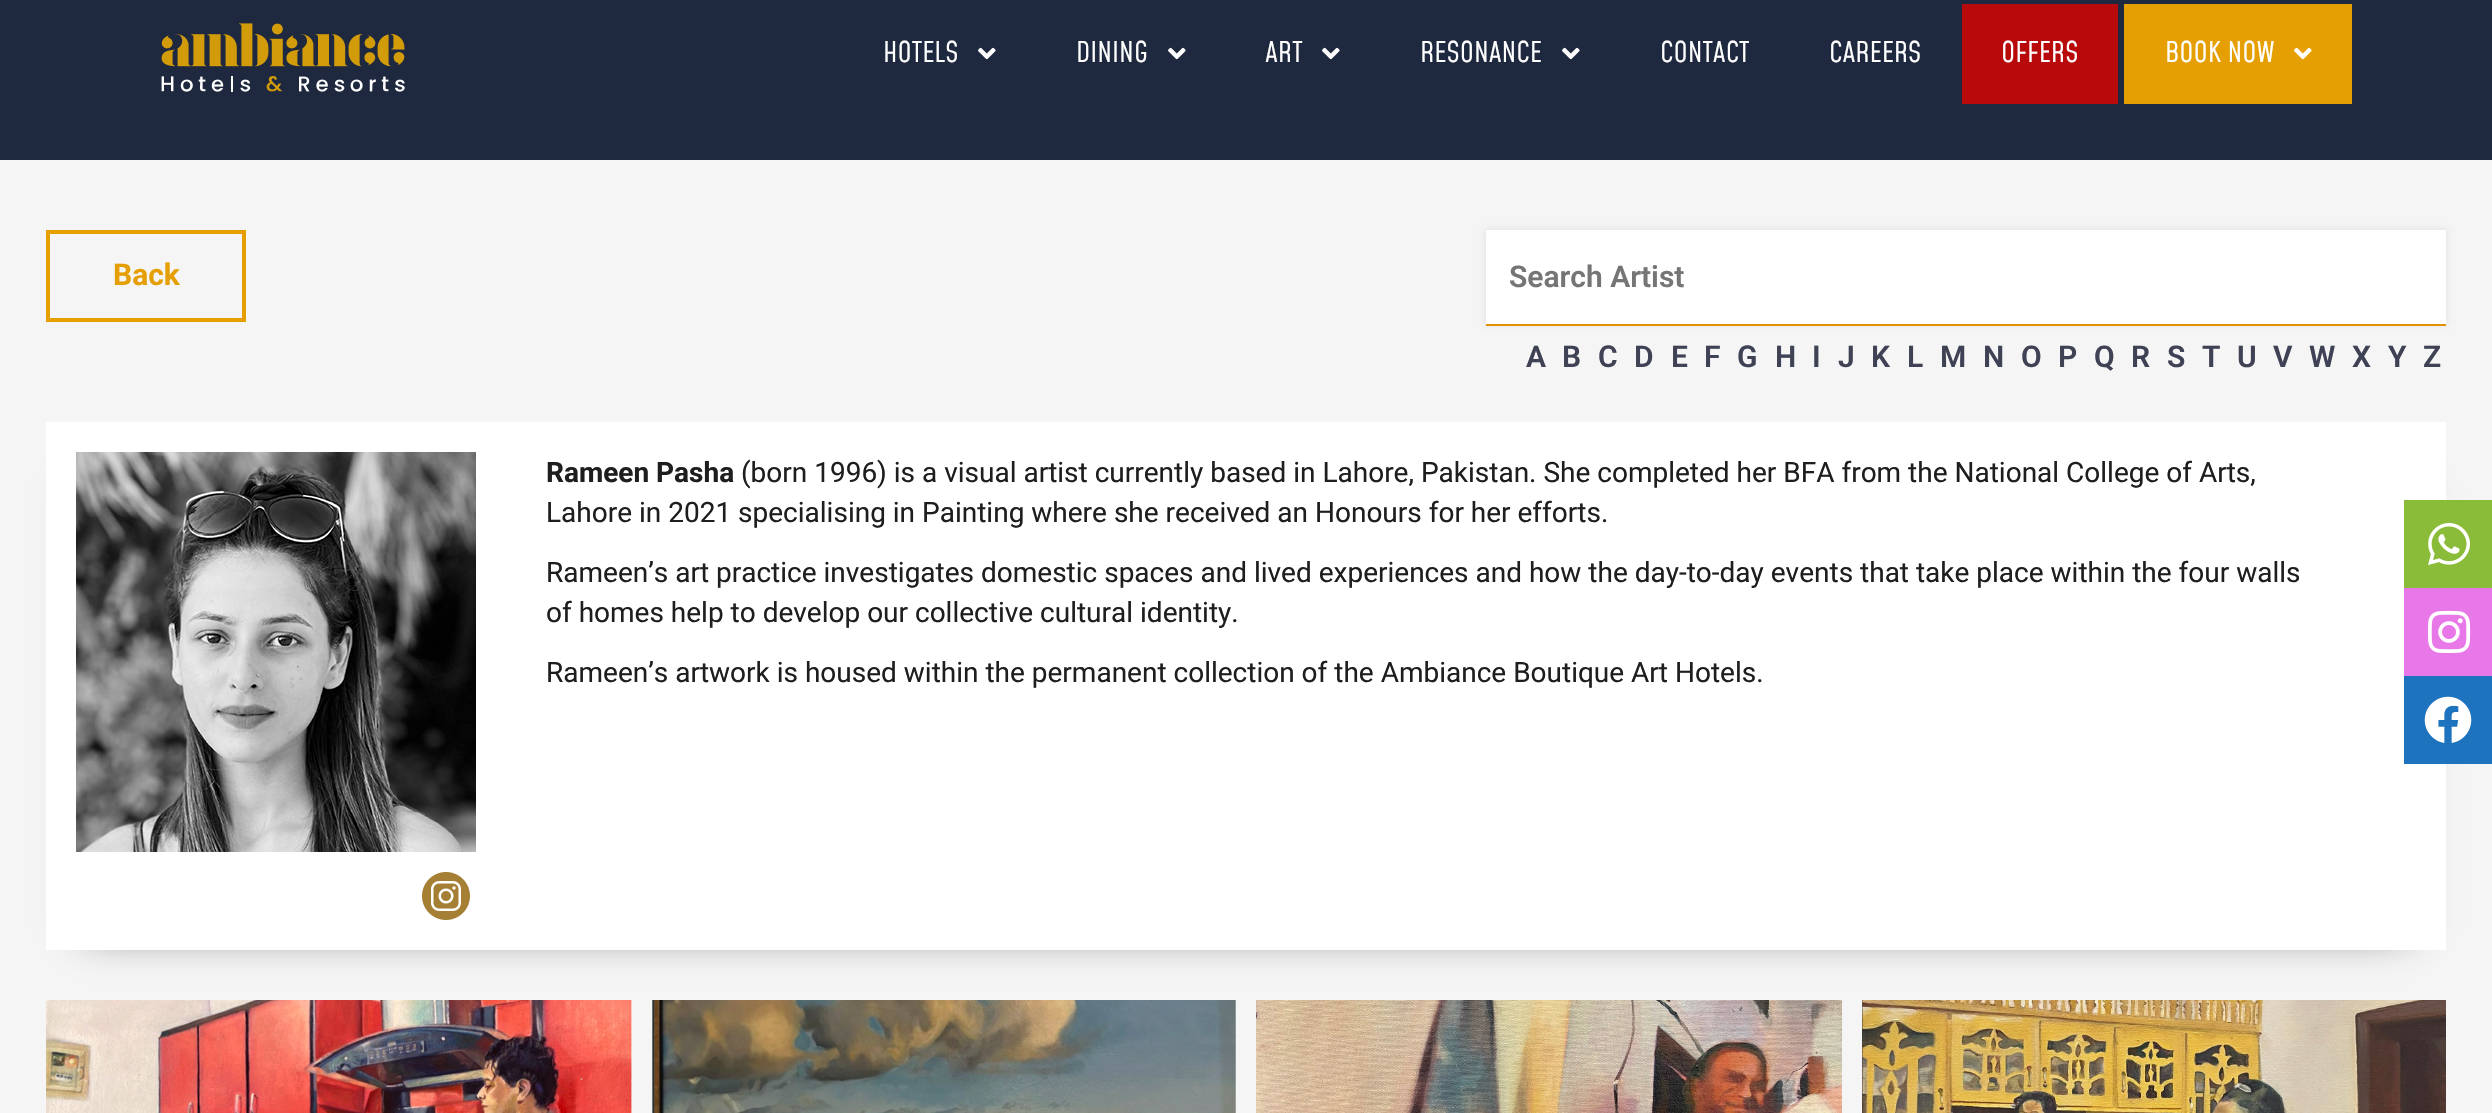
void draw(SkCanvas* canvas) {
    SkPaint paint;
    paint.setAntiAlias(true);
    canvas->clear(0xFFF5F5F5);
    paint.setColor(0xFF1E283E);
    canvas->drawRect(SkRect::MakeXYWH(0, 0, 2492, 160), paint);
    canvas->drawImageRect(SkImages::DeferredFromEncodedData(SkData::MakeFromFileName("img1.png")), SkRect::MakeXYWH(161, 23, 244, 69), SkSamplingOptions());
    SkFont font1(fontMgr->matchFamilyStyle("Mohave", SkFontStyle::Normal()), 28);
    font1.setSubpixel(true);
    paint.setColor(0xFFFFFFFF);
    canvas->drawString("HOTELS", 883, 62, font1, paint);
    canvas->drawImageRect(SkImages::DeferredFromEncodedData(SkData::MakeFromFileName("img2.png")), SkRect::MakeXYWH(978, 47, 18, 13), SkSamplingOptions());
    canvas->drawString("DINING", 1076, 62, font1, paint);
    canvas->drawImageRect(SkImages::DeferredFromEncodedData(SkData::MakeFromFileName("img2.png")), SkRect::MakeXYWH(1168, 47, 18, 13), SkSamplingOptions());
    canvas->drawString("ART", 1265, 62, font1, paint);
    canvas->drawImageRect(SkImages::DeferredFromEncodedData(SkData::MakeFromFileName("img2.png")), SkRect::MakeXYWH(1322, 47, 18, 13), SkSamplingOptions());
    canvas->drawString("RESONANCE", 1420, 62, font1, paint);
    canvas->drawImageRect(SkImages::DeferredFromEncodedData(SkData::MakeFromFileName("img2.png")), SkRect::MakeXYWH(1562, 47, 18, 13), SkSamplingOptions());
    canvas->drawString("CONTACT", 1660, 62, font1, paint);
    canvas->drawString("CAREERS", 1829, 62, font1, paint);
    paint.setColor(0xFFB80A0A);
    canvas->drawRect(SkRect::MakeXYWH(1962, 4, 156, 100), paint);
    paint.setColor(0xFFFFFFFF);
    canvas->drawString("OFFERS", 2001, 62, font1, paint);
    paint.setColor(0xFFE69F03);
    canvas->drawRect(SkRect::MakeXYWH(2124, 4, 228, 100), paint);
    paint.setColor(0xFFFFFFFF);
    canvas->drawString("BOOK NOW", 2165, 62, font1, paint);
    canvas->drawImageRect(SkImages::DeferredFromEncodedData(SkData::MakeFromFileName("img3.png")), SkRect::MakeXYWH(2294, 47, 18, 13), SkSamplingOptions());
    paint.setStyle(SkPaint::kStroke_Style);
    paint.setStrokeWidth(4);
    paint.setColor(0xFFE69F03);
    canvas->drawRect(SkRect::MakeXYWH(48, 232, 196, 88), paint);
    SkFont font2(fontMgr->matchFamilyStyle("Roboto", SkFontStyle::Bold()), 30);
    font2.setSubpixel(true);
    paint.setStyle(SkPaint::kFill_Style);
    canvas->drawString("Back", 113, 285, font2, paint);
    paint.setColor(0x0D000000);
    paint.setMaskFilter(SkMaskFilter::MakeBlur(kNormal_SkBlurStyle, 3));
    canvas->drawRect(SkRect::MakeXYWH(1484, 228, 964, 98), paint);
    paint.setMaskFilter(nullptr);
    paint.setColor(0xFFFFFFFF);
    canvas->drawRect(SkRect::MakeXYWH(1486, 230, 960, 94), paint);
    SkFont font3(fontMgr->matchFamilyStyle("Roboto", SkFontStyle(600, SkFontStyle::kNormal_Width, SkFontStyle::kUpright_Slant)), 30);
    font3.setSubpixel(true);
    paint.setColor(0xFF757575);
    canvas->drawString("Search Artist", 1509, 287, font3, paint);
    paint.setColor(0xFFE58F03);
    canvas->drawRect(SkRect::MakeXYWH(1486, 324, 960, 2), paint);
    paint.setColor(0xFF3F4254);
    canvas->drawString("A", 1526, 367, font3, paint);
    canvas->drawString("B", 1562, 367, font3, paint);
    canvas->drawString("C", 1598, 367, font3, paint);
    canvas->drawString("D", 1634, 367, font3, paint);
    canvas->drawString("E", 1671, 367, font3, paint);
    canvas->drawString("F", 1704, 367, font3, paint);
    canvas->drawString("G", 1737, 367, font3, paint);
    canvas->drawString("H", 1775, 367, font3, paint);
    canvas->drawString("I", 1812, 367, font3, paint);
    canvas->drawString("J", 1838, 367, font3, paint);
    canvas->drawString("K", 1871, 367, font3, paint);
    canvas->drawString("L", 1907, 367, font3, paint);
    canvas->drawString("M", 1940, 367, font3, paint);
    canvas->drawString("N", 1983, 367, font3, paint);
    canvas->drawString("O", 2021, 367, font3, paint);
    canvas->drawString("P", 2058, 367, font3, paint);
    canvas->drawString("Q", 2094, 367, font3, paint);
    canvas->drawString("R", 2131, 367, font3, paint);
    canvas->drawString("S", 2167, 367, font3, paint);
    canvas->drawString("T", 2202, 367, font3, paint);
    canvas->drawString("U", 2237, 367, font3, paint);
    canvas->drawString("V", 2273, 367, font3, paint);
    canvas->drawString("W", 2309, 367, font3, paint);
    canvas->drawString("X", 2352, 367, font3, paint);
    canvas->drawString("Y", 2388, 367, font3, paint);
    canvas->drawString("Z", 2423, 367, font3, paint);
    paint.setColor(0xB3000000);
    paint.setMaskFilter(SkMaskFilter::MakeBlur(kNormal_SkBlurStyle, 20));
    canvas->drawRect(SkRect::MakeXYWH(86, 482, 2320, 448), paint);
    paint.setMaskFilter(nullptr);
    paint.setColor(0xFFFFFFFF);
    canvas->drawRect(SkRect::MakeXYWH(46, 422, 2400, 528), paint);
    canvas->drawImageRect(SkImages::DeferredFromEncodedData(SkData::MakeFromFileName("img4.png")), SkRect::MakeXYWH(76, 452, 400, 400), SkSamplingOptions());
    canvas->drawImageRect(SkImages::DeferredFromEncodedData(SkData::MakeFromFileName("img5.png")), SkRect::MakeXYWH(422, 872, 48, 48), SkSamplingOptions());
    SkFont font4(fontMgr->matchFamilyStyle("Roboto", SkFontStyle::Bold()), 28);
    font4.setSubpixel(true);
    paint.setColor(0xFF1E1E1E);
    canvas->drawString("Rameen Pasha", 546, 482, font4, paint);
    SkFont font5(fontMgr->matchFamilyStyle("Roboto", SkFontStyle::Normal()), 28);
    font5.setSubpixel(true);
    canvas->drawString("(born 1996) is a visual artist currently based in Lahore, Pakistan. She completed her BFA from the National College of Arts,", 741, 482, font5, paint);
    canvas->drawString("Lahore in 2021 specialising in Painting where she received an Honours for her efforts.", 546, 522, font5, paint);
    canvas->drawString("Rameen’s art practice investigates domestic spaces and lived experiences and how the day-to-day events that take place within the four walls", 546, 582, font5, paint);
    canvas->drawString("of homes help to develop our collective cultural identity.", 546, 622, font5, paint);
    canvas->drawString("Rameen’s artwork is housed within the permanent collection of the Ambiance Boutique Art Hotels.", 546, 682, font5, paint);
    canvas->drawImageRect(SkImages::DeferredFromEncodedData(SkData::MakeFromFileName("img6.png")), SkRect::MakeXYWH(46, 1000, 586, 113), SkSamplingOptions());
    canvas->drawImageRect(SkImages::DeferredFromEncodedData(SkData::MakeFromFileName("img7.png")), SkRect::MakeXYWH(652, 1000, 584, 113), SkSamplingOptions());
    canvas->drawImageRect(SkImages::DeferredFromEncodedData(SkData::MakeFromFileName("img8.png")), SkRect::MakeXYWH(1256, 1000, 586, 113), SkSamplingOptions());
    canvas->drawImageRect(SkImages::DeferredFromEncodedData(SkData::MakeFromFileName("img9.png")), SkRect::MakeXYWH(1862, 1000, 584, 113), SkSamplingOptions());
    paint.setColor(0xFF8ABC3A);
    canvas->drawRect(SkRect::MakeXYWH(2404, 500, 88, 88), paint);
    canvas->drawImageRect(SkImages::DeferredFromEncodedData(SkData::MakeFromFileName("img10.png")), SkRect::MakeXYWH(2428, 523, 42, 42), SkSamplingOptions());
    paint.setColor(0xFFE878E8);
    canvas->drawRect(SkRect::MakeXYWH(2404, 588, 88, 88), paint);
    canvas->drawImageRect(SkImages::DeferredFromEncodedData(SkData::MakeFromFileName("img11.png")), SkRect::MakeXYWH(2428, 610, 43, 43), SkSamplingOptions());
    paint.setColor(0xFF1E73BE);
    canvas->drawRect(SkRect::MakeXYWH(2404, 676, 88, 88), paint);
    canvas->drawImageRect(SkImages::DeferredFromEncodedData(SkData::MakeFromFileName("img12.png")), SkRect::MakeXYWH(2424, 696, 48, 47), SkSamplingOptions());
}
